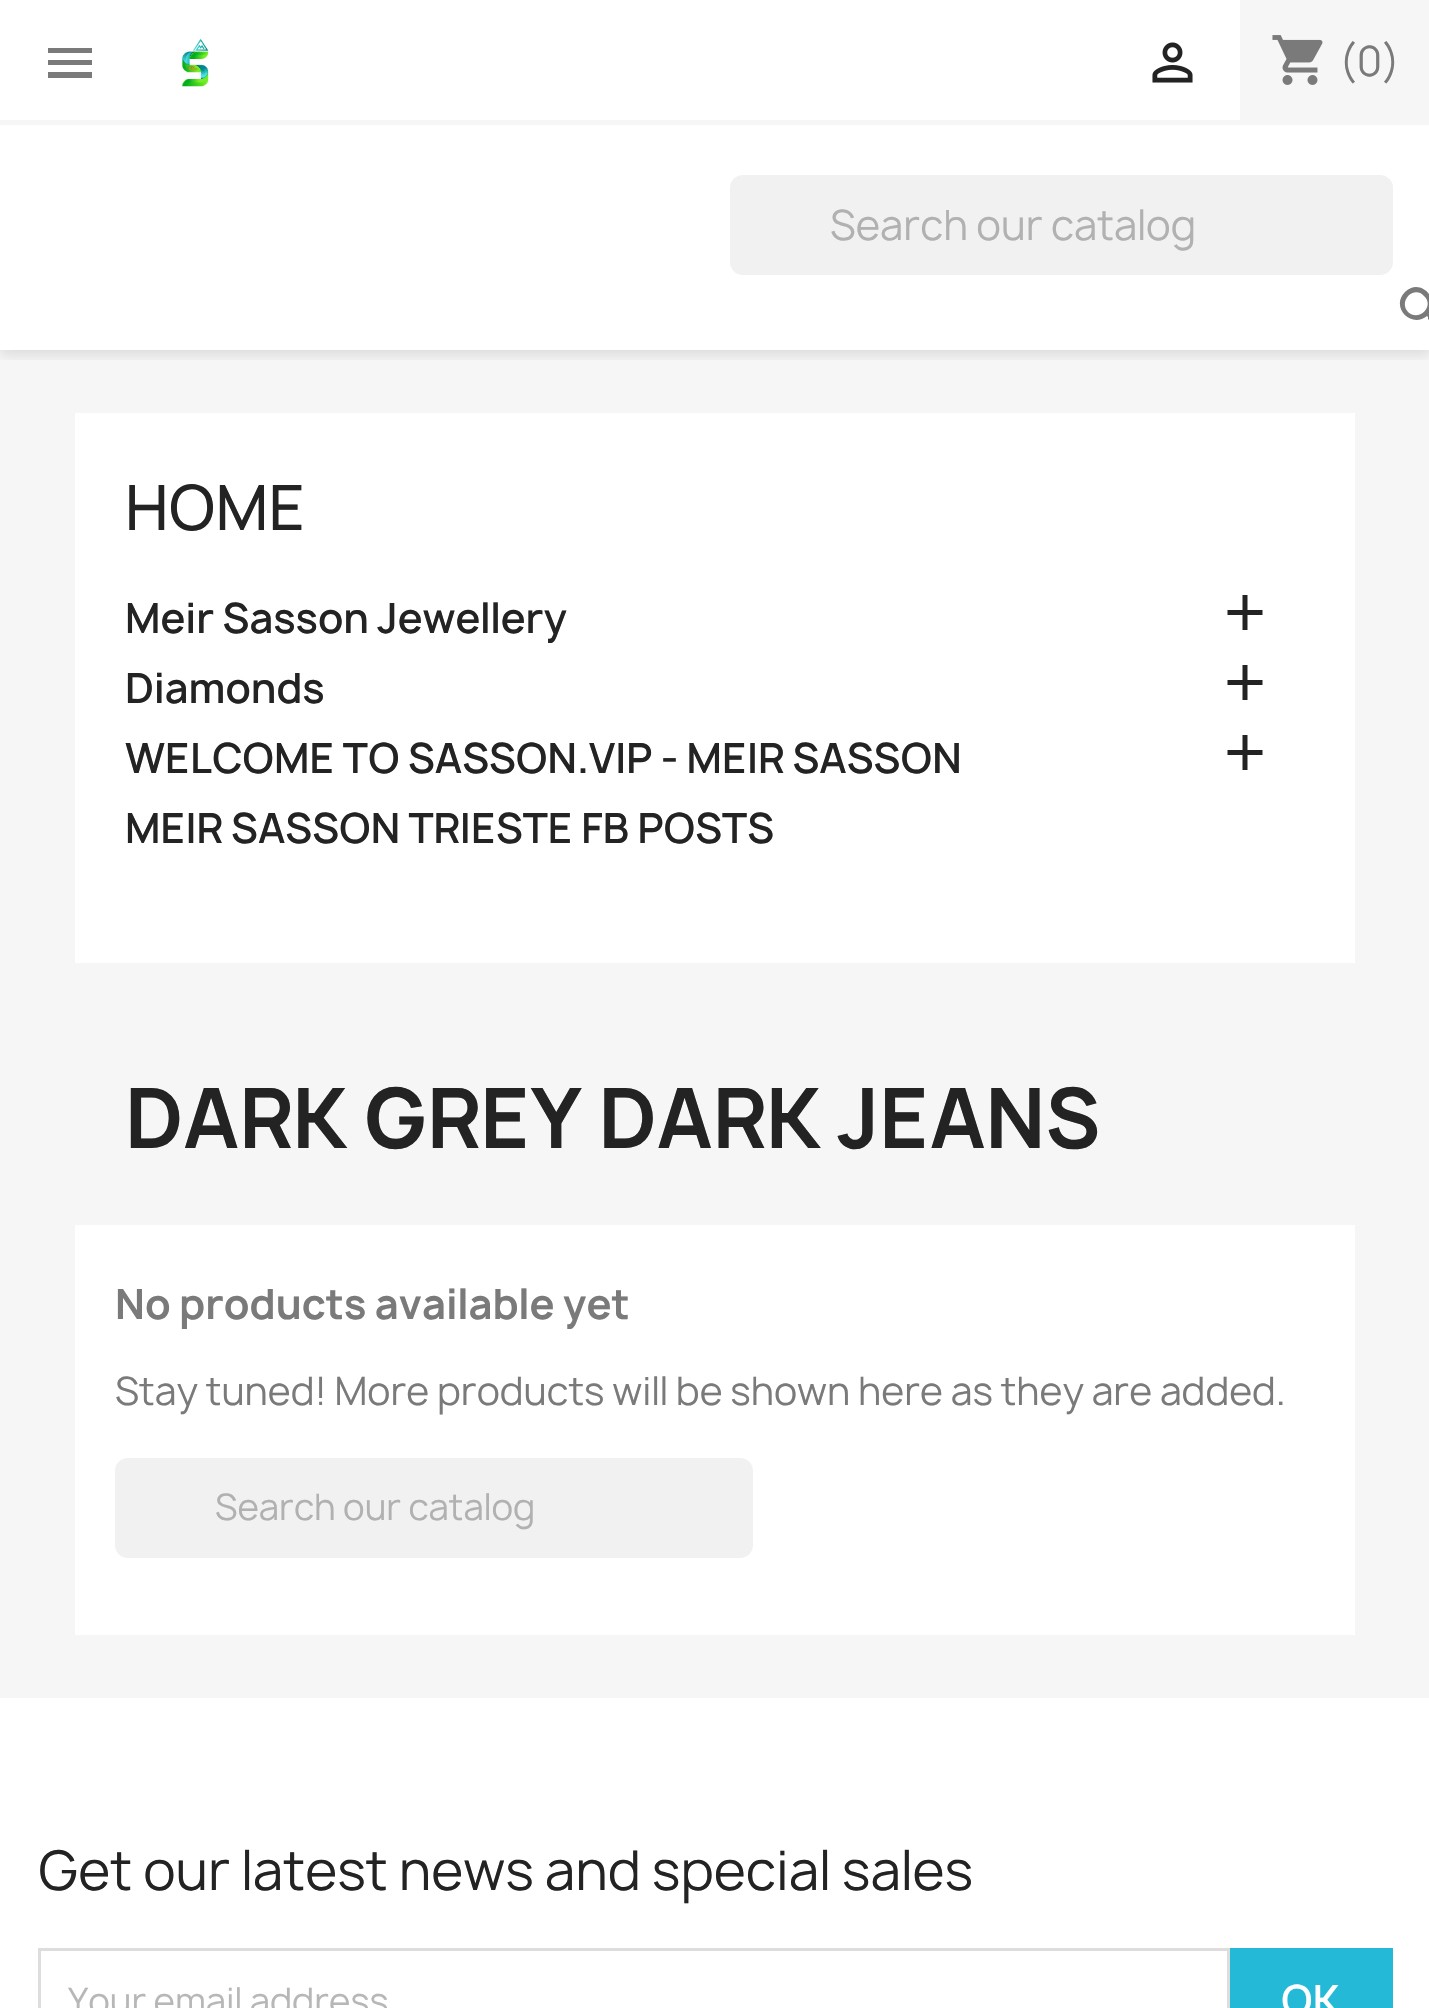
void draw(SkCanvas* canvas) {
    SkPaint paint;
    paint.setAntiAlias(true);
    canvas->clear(0xFFFFFFFF);
    paint.setColor(0xFFF6F6F6);
    canvas->drawRect(SkRect::MakeXYWH(0, 350, 1429, 1348), paint);
    canvas->save();
    canvas->clipRect(SkRect::MakeXYWH(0, 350, 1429, 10));
    paint.setColor(0x1C000000);
    paint.setMaskFilter(SkMaskFilter::MakeBlur(kNormal_SkBlurStyle, 6));
    canvas->drawRect(SkRect::MakeXYWH(0, 5, 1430, 350), paint);
    paint.setMaskFilter(nullptr);
    canvas->restore();
    paint.setColor(0xFFF6F6F6);
    canvas->drawRect(SkRect::MakeXYWH(0, 120, 1429, 5), paint);
    paint.setColor(0xFF7A7A7A);
    canvas->drawPath(SkPathBuilder().moveTo(48, 48).lineTo(92, 48).lineTo(92, 53).lineTo(48, 53).close().moveTo(48, 65).lineTo(48, 60).lineTo(92, 60).lineTo(92, 65).close().moveTo(48, 78).lineTo(48, 72).lineTo(92, 72).lineTo(92, 78).close().detach(), paint);
    canvas->drawImageRect(SkImages::DeferredFromEncodedData(SkData::MakeFromFileName("img1.png")), SkRect::MakeXYWH(181, 38, 28, 49), SkSamplingOptions());
    canvas->drawImageRect(SkImages::DeferredFromEncodedData(SkData::MakeFromFileName("img2.png")), SkRect::MakeXYWH(1152, 42, 41, 41), SkSamplingOptions());
    paint.setColor(0xFFF6F6F6);
    canvas->drawRect(SkRect::MakeXYWH(1240, 0, 189, 120), paint);
    canvas->drawImageRect(SkImages::DeferredFromEncodedData(SkData::MakeFromFileName("img3.png")), SkRect::MakeXYWH(1272, 35, 51, 50), SkSamplingOptions());
    SkFont font1(fontMgr->matchFamilyStyle("Manrope", SkFontStyle::Normal()), 40);
    font1.setSubpixel(true);
    paint.setColor(0xFF7A7A7A);
    canvas->drawString("(0)", 1339, 76, font1, paint);
    paint.setColor(0xFFF1F1F1);
    canvas->drawRoundRect(SkRect::MakeXYWH(730, 175, 663, 100), 13, 13, paint);
    paint.setColor(0xFFB1B1B1);
    canvas->drawString("Search our catalog", 830, 240, font1, paint);
    paint.setColor(0xFF7A7A7A);
    canvas->drawPath(SkPathBuilder().moveTo(1408, 312).cubicTo(1419, 322, 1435, 306, 1424, 296).cubicTo(1414, 285, 1398, 301, 1408, 312).close().moveTo(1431, 315).lineTo(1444, 327).lineTo(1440, 331).lineTo(1428, 319).lineTo(1428, 317).lineTo(1427, 316).cubicTo(1411, 329, 1390, 307, 1405, 292).cubicTo(1420, 277, 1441, 299, 1429, 314).lineTo(1429, 315).close().detach(), paint);
    paint.setColor(0xFFFFFFFF);
    canvas->drawRect(SkRect::MakeXYWH(75, 413, 1280, 550), paint);
    SkFont font2(fontMgr->matchFamilyStyle("Manrope", SkFontStyle(500, SkFontStyle::kNormal_Width, SkFontStyle::kUpright_Slant)), 60);
    font2.setSubpixel(true);
    paint.setColor(0xFF232323);
    canvas->drawString("HOME", 125, 530, font2, paint);
    SkFont font3(fontMgr->matchFamilyStyle("Manrope", SkFontStyle(600, SkFontStyle::kNormal_Width, SkFontStyle::kUpright_Slant)), 40);
    font3.setSubpixel(true);
    canvas->drawString("Meir Sasson Jewellery", 125, 633, font3, paint);
    canvas->drawPath(SkPathBuilder().moveTo(1262.5f, 615).lineTo(1247.5f, 615).lineTo(1247.5f, 630).lineTo(1242.5f, 630).lineTo(1242.5f, 615).lineTo(1227.5f, 615).lineTo(1227.5f, 610).lineTo(1242.5f, 610).lineTo(1242.5f, 595).lineTo(1247.5f, 595).lineTo(1247.5f, 610).lineTo(1262.5f, 610).close().detach(), paint);
    canvas->drawString("Diamonds", 125, 703, font3, paint);
    canvas->drawPath(SkPathBuilder().moveTo(1262.5f, 685).lineTo(1247.5f, 685).lineTo(1247.5f, 700).lineTo(1242.5f, 700).lineTo(1242.5f, 685).lineTo(1227.5f, 685).lineTo(1227.5f, 680).lineTo(1242.5f, 680).lineTo(1242.5f, 665).lineTo(1247.5f, 665).lineTo(1247.5f, 680).lineTo(1262.5f, 680).close().detach(), paint);
    canvas->drawString("WELCOME TO SASSON.VIP - MEIR SASSON", 125, 773, font3, paint);
    canvas->drawPath(SkPathBuilder().moveTo(1262.5f, 755).lineTo(1247.5f, 755).lineTo(1247.5f, 770).lineTo(1242.5f, 770).lineTo(1242.5f, 755).lineTo(1227.5f, 755).lineTo(1227.5f, 750).lineTo(1242.5f, 750).lineTo(1242.5f, 735).lineTo(1247.5f, 735).lineTo(1247.5f, 750).lineTo(1262.5f, 750).close().detach(), paint);
    canvas->drawString("MEIR SASSON TRIESTE FB POSTS", 125, 843, font3, paint);
    SkFont font4(fontMgr->matchFamilyStyle("Manrope", SkFontStyle::Bold()), 80);
    font4.setSubpixel(true);
    canvas->drawString("DARK GREY DARK JEANS", 125, 1148, font4, paint);
    paint.setColor(0xFFFFFFFF);
    canvas->drawRect(SkRect::MakeXYWH(75, 1225, 1280, 410), paint);
    SkFont font5(fontMgr->matchFamilyStyle("Manrope", SkFontStyle::Bold()), 40);
    font5.setSubpixel(true);
    paint.setColor(0xFF7A7A7A);
    canvas->drawString("No products available yet", 115, 1319, font5, paint);
    SkFont font6(fontMgr->matchFamilyStyle("Manrope", SkFontStyle::Normal()), 37.5f);
    font6.setSubpixel(true);
    canvas->drawString("Stay tuned! More products will be shown here as they are added.", 115, 1405, font6, paint);
    paint.setColor(0xFFF1F1F1);
    canvas->drawRoundRect(SkRect::MakeXYWH(115, 1458, 638, 100), 13, 13, paint);
    SkFont font7(fontMgr->matchFamilyStyle("Manrope", SkFontStyle::Normal()), 35);
    font7.setSubpixel(true);
    paint.setColor(0xFFB1B1B1);
    canvas->drawString("Search our catalog", 215, 1520, font7, paint);
    SkFont font8(fontMgr->matchFamilyStyle("Manrope", SkFontStyle::Normal()), 52.5f);
    font8.setSubpixel(true);
    paint.setColor(0xFF232323);
    canvas->drawString("Get our latest news and special sales", 38, 1890, font8, paint);
    paint.setStyle(SkPaint::kStroke_Style);
    paint.setStrokeWidth(3);
    paint.setColor(0xFFDDDDDD);
    canvas->drawRect(SkRect::MakeXYWH(39.5f, 1949.5f, 1189, 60), paint);
    paint.setStyle(SkPaint::kFill_Style);
    paint.setColor(0xFFB7B7B7);
    canvas->drawString("Your email address", 68, 2014, font7, paint);
    paint.setColor(0xFF24B9D7);
    canvas->drawRect(SkRect::MakeXYWH(1230, 1948, 163, 60), paint);
    paint.setColor(0xFFFFFFFF);
    canvas->drawString("OK", 1281, 2015, font3, paint);
}
